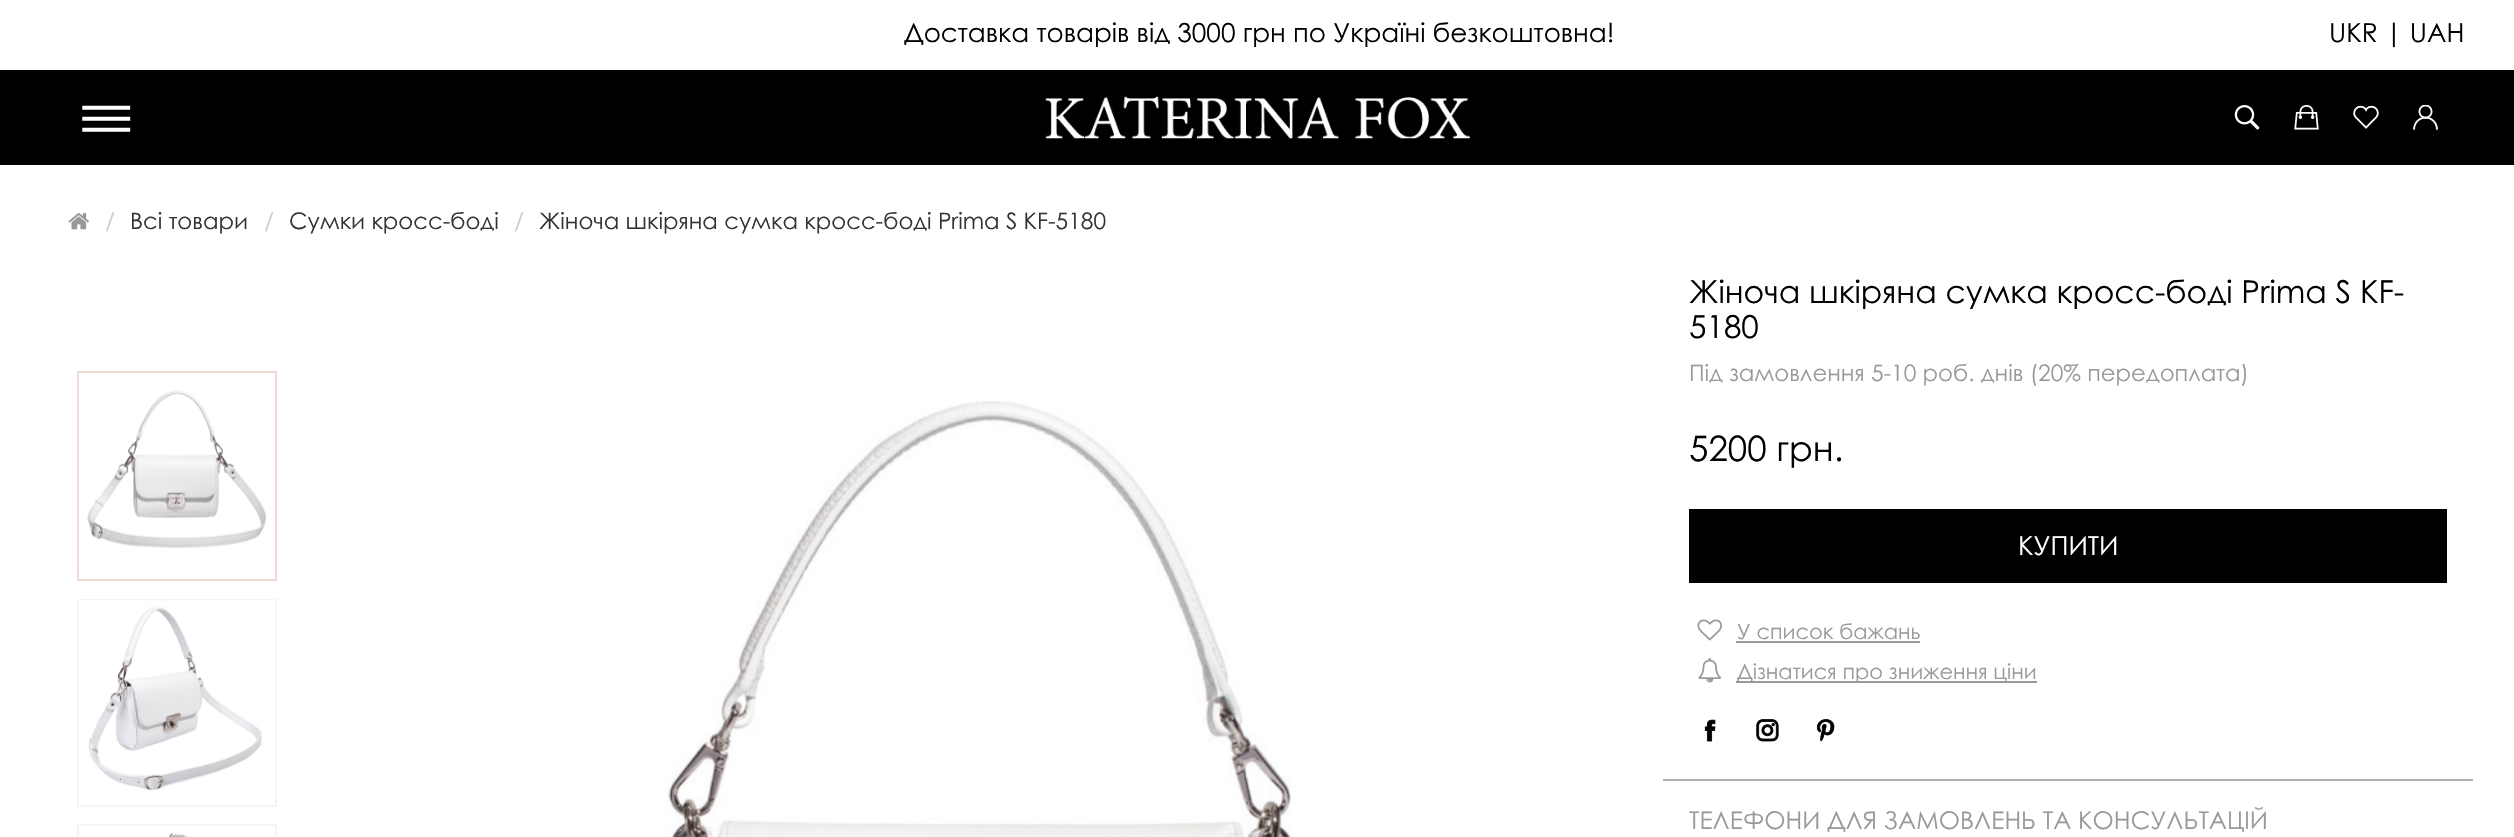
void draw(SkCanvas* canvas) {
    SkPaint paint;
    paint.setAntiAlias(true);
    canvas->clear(0xFFFFFFFF);
    SkFont font1(fontMgr->matchFamilyStyle("Century Gothic", SkFontStyle::Normal()), 26.25f);
    font1.setSubpixel(true);
    paint.setColor(0xFF000000);
    canvas->drawString("Доставка товарів від 3000 грн по Україні безкоштовна!", 904, 42, font1, paint);
    canvas->drawString("UKR | UAH", 2329, 42, font1, paint);
    canvas->drawRect(SkRect::MakeXYWH(0, 70, 2514, 95), paint);
    paint.setStyle(SkPaint::kStroke_Style);
    paint.setStrokeWidth(2.4f);
    paint.setColor(0xFFFFFFFF);
    canvas->drawPath(SkPathBuilder().moveTo(83.5f, 108.5f).lineTo(129, 108.5f).lineTo(129, 107).lineTo(83.5f, 107).close().moveTo(83.5f, 119.5f).lineTo(129, 119.5f).lineTo(129, 118).lineTo(83.5f, 118).close().moveTo(83.5f, 130.5f).lineTo(129, 130.5f).lineTo(129, 129).lineTo(83.5f, 129).close().detach(), paint);
    canvas->drawImageRect(SkImages::DeferredFromEncodedData(SkData::MakeFromFileName("img1.png")), SkRect::MakeXYWH(1043, 96, 427, 43), SkSamplingOptions());
    canvas->drawImageRect(SkImages::DeferredFromEncodedData(SkData::MakeFromFileName("img2.png")), SkRect::MakeXYWH(2234, 105, 26, 25), SkSamplingOptions());
    canvas->drawImageRect(SkImages::DeferredFromEncodedData(SkData::MakeFromFileName("img3.png")), SkRect::MakeXYWH(2294, 105, 25, 25), SkSamplingOptions());
    canvas->drawImageRect(SkImages::DeferredFromEncodedData(SkData::MakeFromFileName("img4.png")), SkRect::MakeXYWH(2353, 105, 26, 24), SkSamplingOptions());
    canvas->drawImageRect(SkImages::DeferredFromEncodedData(SkData::MakeFromFileName("img5.png")), SkRect::MakeXYWH(2413, 105, 25, 25), SkSamplingOptions());
    canvas->drawImageRect(SkImages::DeferredFromEncodedData(SkData::MakeFromFileName("img6.png")), SkRect::MakeXYWH(68, 213, 21, 17), SkSamplingOptions());
    SkFont font2(fontMgr->matchFamilyStyle("Century Gothic", SkFontStyle::Normal()), 22.75f);
    font2.setSubpixel(true);
    paint.setStyle(SkPaint::kFill_Style);
    paint.setColor(0xFFCCCCCC);
    canvas->drawString("/", 105, 229, font2, paint);
    paint.setColor(0xFF333333);
    canvas->drawString("Всі товари", 130, 229, font2, paint);
    paint.setColor(0xFFCCCCCC);
    canvas->drawString("/", 264, 229, font2, paint);
    paint.setColor(0xFF333333);
    canvas->drawString("Сумки кросс-боді", 289, 229, font2, paint);
    paint.setColor(0xFFCCCCCC);
    canvas->drawString("/", 514, 229, font2, paint);
    paint.setColor(0xFF333333);
    canvas->drawString("Жіноча шкіряна сумка кросс-боді Prima S KF-5180", 539, 229, font2, paint);
    paint.setStyle(SkPaint::kStroke_Style);
    paint.setStrokeWidth(2);
    paint.setColor(0xFFEDDAD2);
    canvas->drawRect(SkRect::MakeXYWH(78, 372, 198, 208), paint);
    canvas->drawImageRect(SkImages::DeferredFromEncodedData(SkData::MakeFromFileName("img7.png")), SkRect::MakeXYWH(78, 373, 189, 196), SkSamplingOptions());
    paint.setColor(0xFFF8F5F0);
    canvas->drawRect(SkRect::MakeXYWH(78, 600, 198, 206), paint);
    canvas->drawImageRect(SkImages::DeferredFromEncodedData(SkData::MakeFromFileName("img8.png")), SkRect::MakeXYWH(79, 600, 196, 191), SkSamplingOptions());
    canvas->drawRect(SkRect::MakeXYWH(78, 825, 198, 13), paint);
    canvas->drawImageRect(SkImages::DeferredFromEncodedData(SkData::MakeFromFileName("img9.png")), SkRect::MakeXYWH(168, 832, 20, 5), SkSamplingOptions());
    canvas->drawImageRect(SkImages::DeferredFromEncodedData(SkData::MakeFromFileName("img10.png")), SkRect::MakeXYWH(665, 401, 632, 436), SkSamplingOptions());
    SkFont font3(fontMgr->matchFamilyStyle("Century Gothic", SkFontStyle::Normal()), 31.5f);
    font3.setSubpixel(true);
    paint.setStyle(SkPaint::kFill_Style);
    paint.setColor(0xFF000000);
    canvas->drawString("Жіноча шкіряна сумка кросс-боді Prima S KF-", 1689, 303, font3, paint);
    canvas->drawString("5180", 1689, 338, font3, paint);
    paint.setColor(0xFF999999);
    canvas->drawString("Під замовлення 5-10 роб. днів (20% передоплата)", 1689, 381, font2, paint);
    SkFont font4(fontMgr->matchFamilyStyle("Century Gothic", SkFontStyle::Normal()), 35);
    font4.setSubpixel(true);
    paint.setColor(0xFF000000);
    canvas->drawString("5200 грн.", 1689, 461, font4, paint);
    canvas->drawRect(SkRect::MakeXYWH(1689, 509, 758, 74), paint);
    paint.setColor(0xFFFFFFFF);
    canvas->drawString("КУПИТИ", 2018, 555, font1, paint);
    canvas->drawImageRect(SkImages::DeferredFromEncodedData(SkData::MakeFromFileName("img11.png")), SkRect::MakeXYWH(1697, 619, 25, 22), SkSamplingOptions());
    SkFont font5(fontMgr->matchFamilyStyle("Century Gothic", SkFontStyle::Normal()), 21);
    font5.setSubpixel(true);
    paint.setColor(0xFF999999);
    canvas->drawString("У список бажань", 1737, 639, font5, paint);
    canvas->drawRect(SkRect::MakeXYWH(1736, 641, 184, 2), paint);
    canvas->drawImageRect(SkImages::DeferredFromEncodedData(SkData::MakeFromFileName("img12.png")), SkRect::MakeXYWH(1698, 658, 24, 25), SkSamplingOptions());
    canvas->drawRect(SkRect::MakeXYWH(1736, 681, 301, 2), paint);
    canvas->drawString("Дізнатися про зниження ціни", 1737, 679, font5, paint);
    canvas->drawImageRect(SkImages::DeferredFromEncodedData(SkData::MakeFromFileName("img13.png")), SkRect::MakeXYWH(1704, 719, 12, 23), SkSamplingOptions());
    canvas->drawImageRect(SkImages::DeferredFromEncodedData(SkData::MakeFromFileName("img14.png")), SkRect::MakeXYWH(1756, 719, 23, 23), SkSamplingOptions());
    canvas->drawImageRect(SkImages::DeferredFromEncodedData(SkData::MakeFromFileName("img15.png")), SkRect::MakeXYWH(1816, 719, 19, 23), SkSamplingOptions());
    paint.setColor(0xFFAFAFAF);
    canvas->drawRect(SkRect::MakeXYWH(1663, 779, 810, 2), paint);
    SkFont font6(fontMgr->matchFamilyStyle("Century Gothic", SkFontStyle::Normal()), 24.5f);
    font6.setSubpixel(true);
    paint.setColor(0xFF999999);
    canvas->drawString("ТЕЛЕФОНИ ДЛЯ ЗАМОВЛЕНЬ ТА КОНСУЛЬТАЦІЙ", 1689, 829, font6, paint);
}
